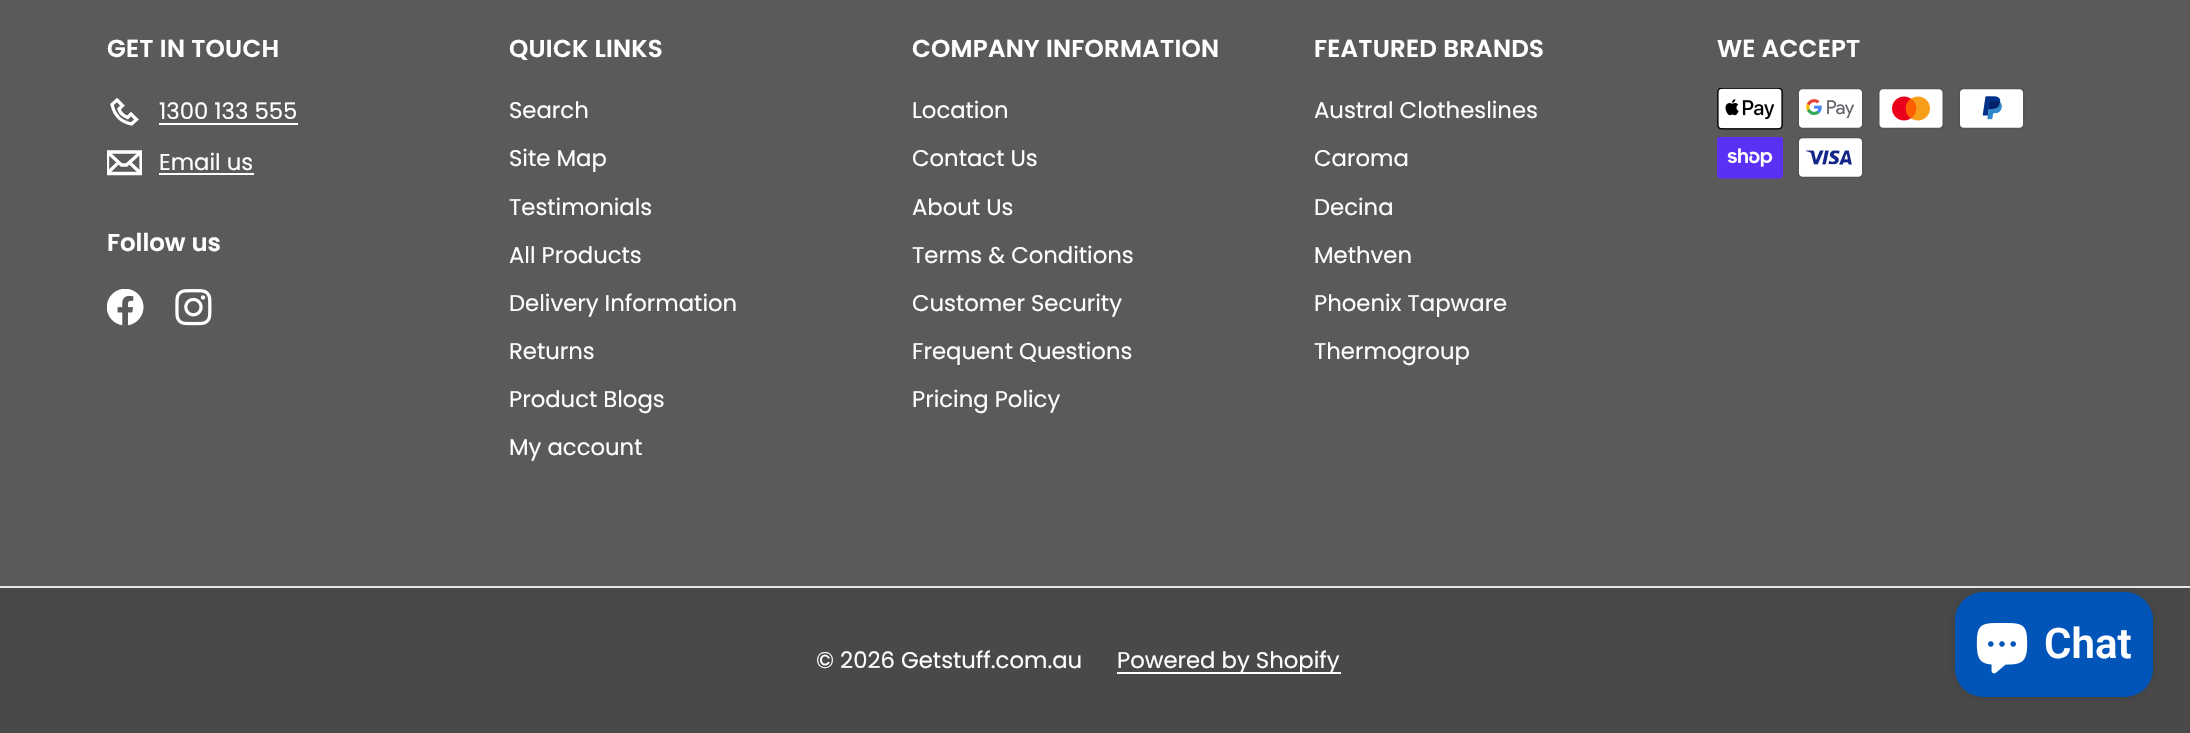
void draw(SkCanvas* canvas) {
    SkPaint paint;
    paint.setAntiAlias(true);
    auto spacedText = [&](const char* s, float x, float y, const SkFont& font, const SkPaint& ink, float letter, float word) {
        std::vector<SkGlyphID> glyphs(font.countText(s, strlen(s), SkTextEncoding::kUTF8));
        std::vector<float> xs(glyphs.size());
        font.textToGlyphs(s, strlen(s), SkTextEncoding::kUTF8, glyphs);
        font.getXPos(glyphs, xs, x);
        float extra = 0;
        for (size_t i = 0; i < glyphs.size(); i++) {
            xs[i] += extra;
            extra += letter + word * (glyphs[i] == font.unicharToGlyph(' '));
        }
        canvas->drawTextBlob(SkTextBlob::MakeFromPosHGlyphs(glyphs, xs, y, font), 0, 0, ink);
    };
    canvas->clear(0xFF4A4949);
    paint.setColor(0xFF5A5A5A);
    canvas->drawRect(SkRect::MakeXYWH(0, 0, 2190, 586), paint);
    SkFont font1(fontMgr->matchFamilyStyle("Poppins", SkFontStyle(600, SkFontStyle::kNormal_Width, SkFontStyle::kUpright_Slant)), 24.5f);
    font1.setSubpixel(true);
    paint.setColor(0xFFFFFFFF);
    spacedText("GET IN TOUCH", 107, 57, font1, paint, 0.25f, 0);
    paint.setStyle(SkPaint::kStroke_Style);
    paint.setStrokeWidth(3.3f);
    canvas->drawPath(SkPathBuilder().moveTo(117, 100).lineTo(122.5f, 105.5f).lineTo(119, 109).cubicTo(120, 112.5f, 122.5f, 115.5f, 127.5f, 117.5f).lineTo(131, 114).lineTo(136.5f, 119.5f).lineTo(131.5f, 124).cubicTo(121, 122, 114.5f, 115.5f, 112, 104.5f).close().detach(), paint);
    SkFont font2(fontMgr->matchFamilyStyle("Poppins", SkFontStyle::Normal()), 22.75f);
    font2.setSubpixel(true);
    paint.setStyle(SkPaint::kFill_Style);
    canvas->drawString("1300 133 555", 159, 119, font2, paint);
    canvas->drawRect(SkRect::MakeXYWH(159, 123, 139, 2), paint);
    canvas->save();
    canvas->clipRect(SkRect::MakeXYWH(107, 145, 35, 35));
    paint.setStyle(SkPaint::kStroke_Style);
    canvas->drawPath(SkPathBuilder().moveTo(141, 173.5f).lineTo(107.5f, 173.5f).lineTo(107.5f, 152).lineTo(141, 152).close().moveTo(107.5f, 152).lineTo(121.5f, 165).lineTo(126.5f, 165).lineTo(141, 152).moveTo(118.5f, 162.5f).lineTo(107.5f, 173).moveTo(141, 173.5f).lineTo(129.5f, 162.5f).detach(), paint);
    canvas->restore();
    paint.setStyle(SkPaint::kFill_Style);
    canvas->drawString("Email us", 159, 170, font2, paint);
    canvas->drawRect(SkRect::MakeXYWH(159, 173, 95, 2), paint);
    canvas->drawString("Follow us", 107, 251, font1, paint);
    canvas->drawImageRect(SkImages::DeferredFromEncodedData(SkData::MakeFromFileName("img1.png")), SkRect::MakeXYWH(107, 289, 37, 37), SkSamplingOptions());
    canvas->drawImageRect(SkImages::DeferredFromEncodedData(SkData::MakeFromFileName("img2.png")), SkRect::MakeXYWH(175, 289, 37, 37), SkSamplingOptions());
    spacedText("QUICK LINKS", 509, 57, font1, paint, 0.25f, 0);
    canvas->drawString("Search", 509, 118, font2, paint);
    canvas->drawString("Site Map", 509, 166, font2, paint);
    canvas->drawString("Testimonials", 509, 215, font2, paint);
    canvas->drawString("All Products", 509, 263, font2, paint);
    canvas->drawString("Delivery Information", 509, 311, font2, paint);
    canvas->drawString("Returns", 509, 359, font2, paint);
    canvas->drawString("Product Blogs", 509, 407, font2, paint);
    canvas->drawString("My account", 509, 455, font2, paint);
    spacedText("COMPANY INFORMATION", 912, 57, font1, paint, 0.25f, 0);
    canvas->drawString("Location", 912, 118, font2, paint);
    canvas->drawString("Contact Us", 912, 166, font2, paint);
    canvas->drawString("About Us", 912, 215, font2, paint);
    canvas->drawString("Terms & Conditions", 912, 263, font2, paint);
    canvas->drawString("Customer Security", 912, 311, font2, paint);
    canvas->drawString("Frequent Questions", 912, 359, font2, paint);
    canvas->drawString("Pricing Policy", 912, 407, font2, paint);
    spacedText("FEATURED BRANDS", 1314, 57, font1, paint, 0.25f, 0);
    canvas->drawString("Austral Clotheslines", 1314, 118, font2, paint);
    canvas->drawString("Caroma", 1314, 166, font2, paint);
    canvas->drawString("Decina", 1314, 215, font2, paint);
    canvas->drawString("Methven", 1314, 263, font2, paint);
    canvas->drawString("Phoenix Tapware", 1314, 311, font2, paint);
    canvas->drawString("Thermogroup", 1314, 359, font2, paint);
    spacedText("WE ACCEPT", 1717, 57, font1, paint, 0.25f, 0);
    canvas->drawImageRect(SkImages::DeferredFromEncodedData(SkData::MakeFromFileName("img3.png")), SkRect::MakeXYWH(1717, 88, 66, 42), SkSamplingOptions());
    canvas->drawImageRect(SkImages::DeferredFromEncodedData(SkData::MakeFromFileName("img4.png")), SkRect::MakeXYWH(1797, 88, 67, 41), SkSamplingOptions());
    canvas->drawImageRect(SkImages::DeferredFromEncodedData(SkData::MakeFromFileName("img5.png")), SkRect::MakeXYWH(1878, 88, 66, 41), SkSamplingOptions());
    canvas->drawImageRect(SkImages::DeferredFromEncodedData(SkData::MakeFromFileName("img6.png")), SkRect::MakeXYWH(1958, 88, 67, 41), SkSamplingOptions());
    canvas->drawImageRect(SkImages::DeferredFromEncodedData(SkData::MakeFromFileName("img7.png")), SkRect::MakeXYWH(1717, 137, 66, 42), SkSamplingOptions());
    canvas->drawImageRect(SkImages::DeferredFromEncodedData(SkData::MakeFromFileName("img8.png")), SkRect::MakeXYWH(1797, 137, 67, 41), SkSamplingOptions());
    paint.setColor(0xFFE8E8E1);
    canvas->drawRect(SkRect::MakeXYWH(0, 586, 2190, 2), paint);
    paint.setColor(0xFFFFFFFF);
    canvas->drawString("© 2026 Getstuff.com.au", 816, 668, font2, paint);
    canvas->drawRect(SkRect::MakeXYWH(1117, 672, 224, 2), paint);
    canvas->drawString("Powered by Shopify", 1117, 668, font2, paint);
    paint.setColor(0x26000000);
    paint.setMaskFilter(SkMaskFilter::MakeBlur(kNormal_SkBlurStyle, 4.5f));
    canvas->drawRoundRect(SkRect::MakeXYWH(1955, 592, 198, 105), 28, 28, paint);
    paint.setMaskFilter(nullptr);
    paint.setColor(0xFF0154B8);
    canvas->drawRoundRect(SkRect::MakeXYWH(1955, 592, 198, 105), 28, 28, paint);
    canvas->drawImageRect(SkImages::DeferredFromEncodedData(SkData::MakeFromFileName("img9.png")), SkRect::MakeXYWH(1976, 623, 52, 51), SkSamplingOptions());
    SkFont font3(fontMgr->matchFamilyStyle("Roboto", SkFontStyle(600, SkFontStyle::kNormal_Width, SkFontStyle::kUpright_Slant)), 42);
    font3.setSubpixel(true);
    paint.setColor(0xFFFFFFFF);
    canvas->drawString("Chat", 2044, 658, font3, paint);
}
